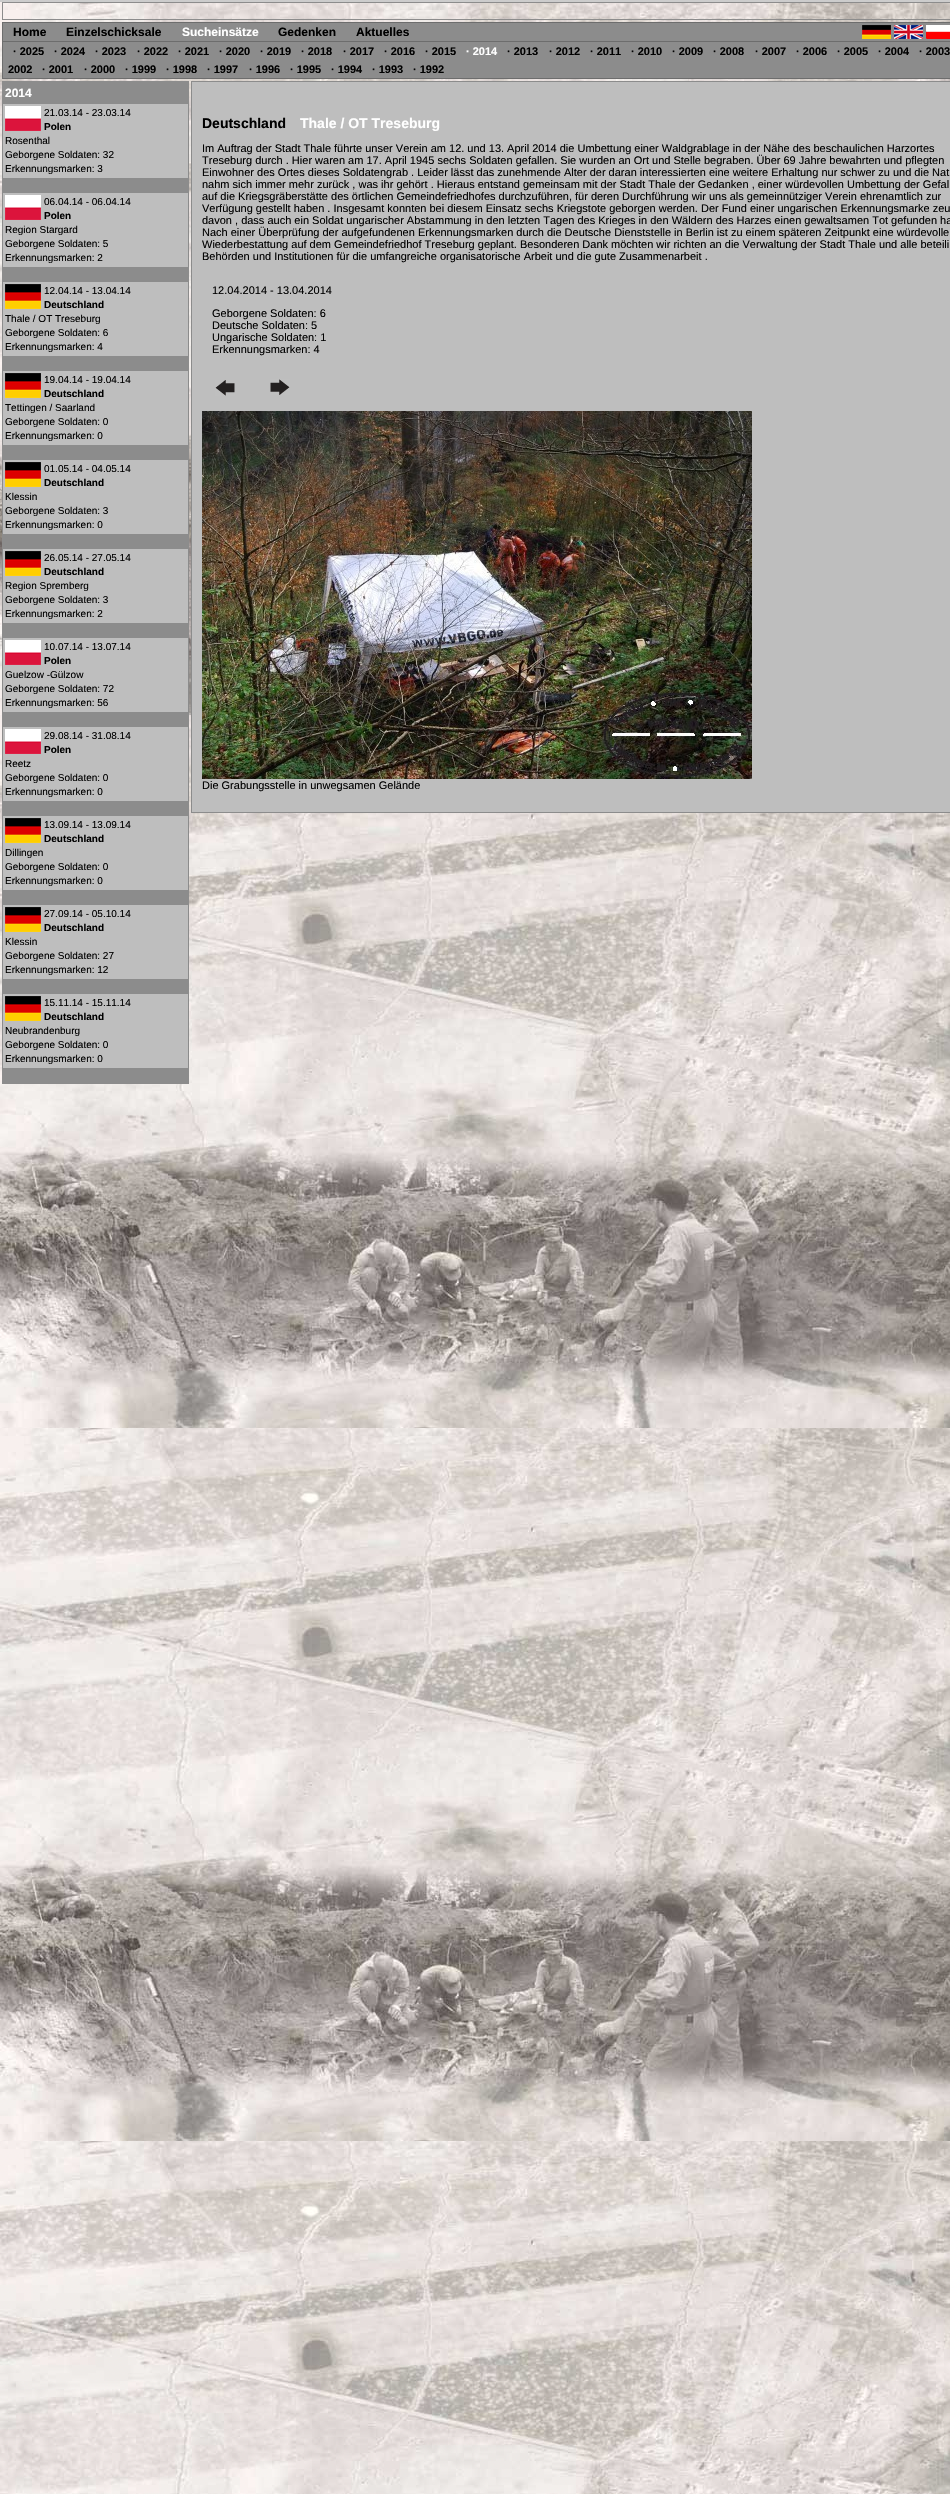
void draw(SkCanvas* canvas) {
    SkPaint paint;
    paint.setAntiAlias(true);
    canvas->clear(0xFFCCCCCC);
    canvas->drawImageRect(SkImages::DeferredFromEncodedData(SkData::MakeFromFileName("img1.png")), SkRect::MakeXYWH(0, 2, 950, 2492), SkSamplingOptions());
    paint.setStyle(SkPaint::kStroke_Style);
    paint.setStrokeWidth(1);
    paint.setColor(0xFF8C8C8C);
    canvas->drawRect(SkRect::MakeXYWH(2.5f, 2.5f, 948, 17), paint);
    paint.setStyle(SkPaint::kFill_Style);
    canvas->drawRect(SkRect::MakeXYWH(2.5f, 22.5f, 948, 19), paint);
    paint.setStyle(SkPaint::kStroke_Style);
    paint.setColor(0xFF6D6D6D);
    canvas->drawRect(SkRect::MakeXYWH(2.5f, 22.5f, 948, 19), paint);
    SkFont font1(fontMgr->matchFamilyStyle("Liberation Sans", SkFontStyle::Bold()), 12);
    font1.setSubpixel(true);
    paint.setStyle(SkPaint::kFill_Style);
    paint.setColor(0xFF000000);
    canvas->drawString("Home", 13, 36, font1, paint);
    canvas->drawString("Einzelschicksale", 66, 36, font1, paint);
    paint.setColor(0xFFFFFFFF);
    canvas->drawString("Sucheinsätze", 182, 36, font1, paint);
    paint.setColor(0xFF000000);
    canvas->drawString("Gedenken", 278, 36, font1, paint);
    canvas->drawString("Aktuelles", 356, 36, font1, paint);
    canvas->drawImageRect(SkImages::DeferredFromEncodedData(SkData::MakeFromFileName("img2.png")), SkRect::MakeXYWH(862, 25, 29, 14), SkSamplingOptions());
    canvas->drawImageRect(SkImages::DeferredFromEncodedData(SkData::MakeFromFileName("img3.png")), SkRect::MakeXYWH(894, 25, 29, 14), SkSamplingOptions());
    canvas->drawImageRect(SkImages::DeferredFromEncodedData(SkData::MakeFromFileName("img4.png")), SkRect::MakeXYWH(926, 25, 24, 14), SkSamplingOptions());
    paint.setColor(0xFF8C8C8C);
    canvas->drawRect(SkRect::MakeXYWH(3, 42, 947, 36), paint);
    paint.setColor(0xFF6D6D6D);
    canvas->drawRect(SkRect::MakeXYWH(2, 78, 948, 1), paint);
    canvas->drawRect(SkRect::MakeXYWH(2, 42, 1, 37), paint);
    SkFont font2(fontMgr->matchFamilyStyle("Liberation Sans", SkFontStyle::Bold()), 11);
    font2.setSubpixel(true);
    paint.setColor(0xFF000000);
    canvas->drawString("· 2025", 13, 55, font2, paint);
    canvas->drawString("· 2024", 54, 55, font2, paint);
    canvas->drawString("· 2023", 95, 55, font2, paint);
    canvas->drawString("· 2022", 137, 55, font2, paint);
    canvas->drawString("· 2021", 178, 55, font2, paint);
    canvas->drawString("· 2020", 219, 55, font2, paint);
    canvas->drawString("· 2019", 260, 55, font2, paint);
    canvas->drawString("· 2018", 301, 55, font2, paint);
    canvas->drawString("· 2017", 343, 55, font2, paint);
    canvas->drawString("· 2016", 384, 55, font2, paint);
    canvas->drawString("· 2015", 425, 55, font2, paint);
    paint.setColor(0xFFFFFFFF);
    canvas->drawString("· 2014", 466, 55, font2, paint);
    paint.setColor(0xFF000000);
    canvas->drawString("· 2013", 507, 55, font2, paint);
    canvas->drawString("· 2012", 549, 55, font2, paint);
    canvas->drawString("· 2011", 590, 55, font2, paint);
    canvas->drawString("· 2010", 631, 55, font2, paint);
    canvas->drawString("· 2009", 672, 55, font2, paint);
    canvas->drawString("· 2008", 713, 55, font2, paint);
    canvas->drawString("· 2007", 755, 55, font2, paint);
    canvas->drawString("· 2006", 796, 55, font2, paint);
    canvas->drawString("· 2005", 837, 55, font2, paint);
    canvas->drawString("· 2004", 878, 55, font2, paint);
    canvas->drawString("· 2003", 919, 55, font2, paint);
    canvas->drawString("2002", 8, 73, font2, paint);
    canvas->drawString("· 2001", 42, 73, font2, paint);
    canvas->drawString("· 2000", 84, 73, font2, paint);
    canvas->drawString("· 1999", 125, 73, font2, paint);
    canvas->drawString("· 1998", 166, 73, font2, paint);
    canvas->drawString("· 1997", 207, 73, font2, paint);
    canvas->drawString("· 1996", 249, 73, font2, paint);
    canvas->drawString("· 1995", 290, 73, font2, paint);
    canvas->drawString("· 1994", 331, 73, font2, paint);
    canvas->drawString("· 1993", 372, 73, font2, paint);
    canvas->drawString("· 1992", 413, 73, font2, paint);
    paint.setStyle(SkPaint::kStroke_Style);
    paint.setColor(0xFF8C8C8C);
    canvas->drawRect(SkRect::MakeXYWH(2.5f, 81.5f, 186, 1002), paint);
    paint.setStyle(SkPaint::kFill_Style);
    canvas->drawRect(SkRect::MakeXYWH(3, 82, 185, 22), paint);
    paint.setColor(0xFFFFFFFF);
    canvas->drawString("2014", 5, 97, font1, paint);
    paint.setColor(0xFFBEBEBE);
    canvas->drawRect(SkRect::MakeXYWH(3, 104, 185, 74), paint);
    paint.setColor(0xFF8C8C8C);
    canvas->drawRect(SkRect::MakeXYWH(3, 178, 185, 15), paint);
    canvas->drawImageRect(SkImages::DeferredFromEncodedData(SkData::MakeFromFileName("img5.png")), SkRect::MakeXYWH(5, 106, 36, 25), SkSamplingOptions());
    SkFont font3(fontMgr->matchFamilyStyle("Liberation Sans", SkFontStyle::Normal()), 10);
    font3.setSubpixel(true);
    paint.setColor(0xFF000000);
    canvas->drawString("21.03.14 - 23.03.14", 44, 116, font3, paint);
    SkFont font4(fontMgr->matchFamilyStyle("Liberation Sans", SkFontStyle::Bold()), 10);
    font4.setSubpixel(true);
    canvas->drawString("Polen", 44, 130, font4, paint);
    canvas->drawString("Rosenthal", 5, 144, font3, paint);
    canvas->drawString("Geborgene Soldaten: 32", 5, 158, font3, paint);
    canvas->drawString("Erkennungsmarken: 3", 5, 172, font3, paint);
    paint.setColor(0xFFBEBEBE);
    canvas->drawRect(SkRect::MakeXYWH(3, 193, 185, 74), paint);
    paint.setColor(0xFF8C8C8C);
    canvas->drawRect(SkRect::MakeXYWH(3, 267, 185, 15), paint);
    canvas->drawImageRect(SkImages::DeferredFromEncodedData(SkData::MakeFromFileName("img6.png")), SkRect::MakeXYWH(5, 195, 36, 25), SkSamplingOptions());
    paint.setColor(0xFF000000);
    canvas->drawString("06.04.14 - 06.04.14", 44, 205, font3, paint);
    canvas->drawString("Polen", 44, 219, font4, paint);
    canvas->drawString("Region Stargard", 5, 233, font3, paint);
    canvas->drawString("Geborgene Soldaten: 5", 5, 247, font3, paint);
    canvas->drawString("Erkennungsmarken: 2", 5, 261, font3, paint);
    paint.setColor(0xFFBEBEBE);
    canvas->drawRect(SkRect::MakeXYWH(3, 282, 185, 74), paint);
    paint.setColor(0xFF8C8C8C);
    canvas->drawRect(SkRect::MakeXYWH(3, 356, 185, 15), paint);
    canvas->drawImageRect(SkImages::DeferredFromEncodedData(SkData::MakeFromFileName("img7.png")), SkRect::MakeXYWH(5, 284, 36, 25), SkSamplingOptions());
    paint.setColor(0xFF000000);
    canvas->drawString("12.04.14 - 13.04.14", 44, 294, font3, paint);
    canvas->drawString("Deutschland", 44, 308, font4, paint);
    canvas->drawString("Thale / OT Treseburg", 5, 322, font3, paint);
    canvas->drawString("Geborgene Soldaten: 6", 5, 336, font3, paint);
    canvas->drawString("Erkennungsmarken: 4", 5, 350, font3, paint);
    paint.setColor(0xFFBEBEBE);
    canvas->drawRect(SkRect::MakeXYWH(3, 371, 185, 74), paint);
    paint.setColor(0xFF8C8C8C);
    canvas->drawRect(SkRect::MakeXYWH(3, 445, 185, 15), paint);
    canvas->drawImageRect(SkImages::DeferredFromEncodedData(SkData::MakeFromFileName("img7.png")), SkRect::MakeXYWH(5, 373, 36, 25), SkSamplingOptions());
    paint.setColor(0xFF000000);
    canvas->drawString("19.04.14 - 19.04.14", 44, 383, font3, paint);
    canvas->drawString("Deutschland", 44, 397, font4, paint);
    canvas->drawString("Tettingen / Saarland", 5, 411, font3, paint);
    canvas->drawString("Geborgene Soldaten: 0", 5, 425, font3, paint);
    canvas->drawString("Erkennungsmarken: 0", 5, 439, font3, paint);
    paint.setColor(0xFFBEBEBE);
    canvas->drawRect(SkRect::MakeXYWH(3, 460, 185, 74), paint);
    paint.setColor(0xFF8C8C8C);
    canvas->drawRect(SkRect::MakeXYWH(3, 534, 185, 15), paint);
    canvas->drawImageRect(SkImages::DeferredFromEncodedData(SkData::MakeFromFileName("img7.png")), SkRect::MakeXYWH(5, 462, 36, 25), SkSamplingOptions());
    paint.setColor(0xFF000000);
    canvas->drawString("01.05.14 - 04.05.14", 44, 472, font3, paint);
    canvas->drawString("Deutschland", 44, 486, font4, paint);
    canvas->drawString("Klessin", 5, 500, font3, paint);
    canvas->drawString("Geborgene Soldaten: 3", 5, 514, font3, paint);
    canvas->drawString("Erkennungsmarken: 0", 5, 528, font3, paint);
    paint.setColor(0xFFBEBEBE);
    canvas->drawRect(SkRect::MakeXYWH(3, 549, 185, 74), paint);
    paint.setColor(0xFF8C8C8C);
    canvas->drawRect(SkRect::MakeXYWH(3, 623, 185, 15), paint);
    canvas->drawImageRect(SkImages::DeferredFromEncodedData(SkData::MakeFromFileName("img7.png")), SkRect::MakeXYWH(5, 551, 36, 25), SkSamplingOptions());
    paint.setColor(0xFF000000);
    canvas->drawString("26.05.14 - 27.05.14", 44, 561, font3, paint);
    canvas->drawString("Deutschland", 44, 575, font4, paint);
    canvas->drawString("Region Spremberg", 5, 589, font3, paint);
    canvas->drawString("Geborgene Soldaten: 3", 5, 603, font3, paint);
    canvas->drawString("Erkennungsmarken: 2", 5, 617, font3, paint);
    paint.setColor(0xFFBEBEBE);
    canvas->drawRect(SkRect::MakeXYWH(3, 638, 185, 74), paint);
    paint.setColor(0xFF8C8C8C);
    canvas->drawRect(SkRect::MakeXYWH(3, 712, 185, 15), paint);
    canvas->drawImageRect(SkImages::DeferredFromEncodedData(SkData::MakeFromFileName("img6.png")), SkRect::MakeXYWH(5, 640, 36, 25), SkSamplingOptions());
    paint.setColor(0xFF000000);
    canvas->drawString("10.07.14 - 13.07.14", 44, 650, font3, paint);
    canvas->drawString("Polen", 44, 664, font4, paint);
    canvas->drawString("Guelzow -Gülzow", 5, 678, font3, paint);
    canvas->drawString("Geborgene Soldaten: 72", 5, 692, font3, paint);
    canvas->drawString("Erkennungsmarken: 56", 5, 706, font3, paint);
    paint.setColor(0xFFBEBEBE);
    canvas->drawRect(SkRect::MakeXYWH(3, 727, 185, 74), paint);
    paint.setColor(0xFF8C8C8C);
    canvas->drawRect(SkRect::MakeXYWH(3, 801, 185, 15), paint);
    canvas->drawImageRect(SkImages::DeferredFromEncodedData(SkData::MakeFromFileName("img6.png")), SkRect::MakeXYWH(5, 729, 36, 25), SkSamplingOptions());
    paint.setColor(0xFF000000);
    canvas->drawString("29.08.14 - 31.08.14", 44, 739, font3, paint);
    canvas->drawString("Polen", 44, 753, font4, paint);
    canvas->drawString("Reetz", 5, 767, font3, paint);
    canvas->drawString("Geborgene Soldaten: 0", 5, 781, font3, paint);
    canvas->drawString("Erkennungsmarken: 0", 5, 795, font3, paint);
    paint.setColor(0xFFBEBEBE);
    canvas->drawRect(SkRect::MakeXYWH(3, 816, 185, 74), paint);
    paint.setColor(0xFF8C8C8C);
    canvas->drawRect(SkRect::MakeXYWH(3, 890, 185, 15), paint);
    canvas->drawImageRect(SkImages::DeferredFromEncodedData(SkData::MakeFromFileName("img7.png")), SkRect::MakeXYWH(5, 818, 36, 25), SkSamplingOptions());
    paint.setColor(0xFF000000);
    canvas->drawString("13.09.14 - 13.09.14", 44, 828, font3, paint);
    canvas->drawString("Deutschland", 44, 842, font4, paint);
    canvas->drawString("Dillingen", 5, 856, font3, paint);
    canvas->drawString("Geborgene Soldaten: 0", 5, 870, font3, paint);
    canvas->drawString("Erkennungsmarken: 0", 5, 884, font3, paint);
    paint.setColor(0xFFBEBEBE);
    canvas->drawRect(SkRect::MakeXYWH(3, 905, 185, 74), paint);
    paint.setColor(0xFF8C8C8C);
    canvas->drawRect(SkRect::MakeXYWH(3, 979, 185, 15), paint);
    canvas->drawImageRect(SkImages::DeferredFromEncodedData(SkData::MakeFromFileName("img7.png")), SkRect::MakeXYWH(5, 907, 36, 25), SkSamplingOptions());
    paint.setColor(0xFF000000);
    canvas->drawString("27.09.14 - 05.10.14", 44, 917, font3, paint);
    canvas->drawString("Deutschland", 44, 931, font4, paint);
    canvas->drawString("Klessin", 5, 945, font3, paint);
    canvas->drawString("Geborgene Soldaten: 27", 5, 959, font3, paint);
    canvas->drawString("Erkennungsmarken: 12", 5, 973, font3, paint);
    paint.setColor(0xFFBEBEBE);
    canvas->drawRect(SkRect::MakeXYWH(3, 994, 185, 74), paint);
    paint.setColor(0xFF8C8C8C);
    canvas->drawRect(SkRect::MakeXYWH(3, 1068, 185, 15), paint);
    canvas->drawImageRect(SkImages::DeferredFromEncodedData(SkData::MakeFromFileName("img7.png")), SkRect::MakeXYWH(5, 996, 36, 25), SkSamplingOptions());
    paint.setColor(0xFF000000);
    canvas->drawString("15.11.14 - 15.11.14", 44, 1006, font3, paint);
    canvas->drawString("Deutschland", 44, 1020, font4, paint);
    canvas->drawString("Neubrandenburg", 5, 1034, font3, paint);
    canvas->drawString("Geborgene Soldaten: 0", 5, 1048, font3, paint);
    canvas->drawString("Erkennungsmarken: 0", 5, 1062, font3, paint);
    paint.setColor(0xFFBEBEBE);
    canvas->drawRect(SkRect::MakeXYWH(191.5f, 81.5f, 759, 731), paint);
    paint.setStyle(SkPaint::kStroke_Style);
    paint.setColor(0xFF8C8C8C);
    canvas->drawRect(SkRect::MakeXYWH(191.5f, 81.5f, 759, 731), paint);
    SkFont font5(fontMgr->matchFamilyStyle("Liberation Sans", SkFontStyle::Bold()), 14);
    font5.setSubpixel(true);
    paint.setStyle(SkPaint::kFill_Style);
    paint.setColor(0xFF000000);
    canvas->drawString("Deutschland", 202, 128, font5, paint);
    paint.setColor(0xFFFFFFFF);
    canvas->drawString("Thale / OT Treseburg", 300, 128, font5, paint);
    SkFont font6(fontMgr->matchFamilyStyle("Liberation Sans", SkFontStyle::Normal()), 11);
    font6.setSubpixel(true);
    paint.setColor(0xFF000000);
    canvas->drawString("Im Auftrag der Stadt Thale führte unser Verein am 12. und 13. April 2014 die Umbettung einer Waldgrablage in der Nähe des beschaulichen Harzortes", 202, 152, font6, paint);
    canvas->drawString("Treseburg durch . Hier waren am 17. April 1945 sechs Soldaten gefallen. Sie wurden an Ort und Stelle begraben. Über 69 Jahre bewahrten und pflegten", 202, 164, font6, paint);
    canvas->drawString("Einwohner des Ortes dieses Soldatengrab . Leider lässt das zunehmende Alter der daran interessierten eine weitere Erhaltung nur schwer zu und die Nat", 202, 176, font6, paint);
    canvas->drawString("nahm sich immer mehr zurück , was ihr gehört . Hieraus entstand gemeinsam mit der Stadt Thale der Gedanken , einer würdevollen Umbettung der Gefal", 202, 188, font6, paint);
    canvas->drawString("auf die Kriegsgräberstätte des örtlichen Gemeindefriedhofes durchzuführen, für deren Durchführung wir uns als gemeinnütziger Verein ehrenamtlich zur", 202, 200, font6, paint);
    canvas->drawString("Verfügung gestellt haben . Insgesamt konnten bei diesem Einsatz sechs Kriegstote geborgen werden. Der Fund einer ungarischen Erkennungsmarke zeu", 202, 212, font6, paint);
    canvas->drawString("davon , dass auch ein Soldat ungarischer Abstammung in den letzten Tagen des Krieges in den Wäldern des Harzes einen gewaltsamen Tot gefunden ha", 202, 224, font6, paint);
    canvas->drawString("Nach einer Überprüfung der aufgefundenen Erkennungsmarken durch die Deutsche Dienststelle in Berlin ist zu einem späteren Zeitpunkt eine würdevolle", 202, 236, font6, paint);
    canvas->drawString("Wiederbestattung auf dem Gemeindefriedhof Treseburg geplant. Besonderen Dank möchten wir richten an die Verwaltung der Stadt Thale und alle beteili", 202, 248, font6, paint);
    canvas->drawString("Behörden und Institutionen für die umfangreiche organisatorische Arbeit und die gute Zusammenarbeit .", 202, 260, font6, paint);
    canvas->drawString("12.04.2014 - 13.04.2014", 212, 294, font6, paint);
    canvas->drawString("Geborgene Soldaten: 6", 212, 317, font6, paint);
    canvas->drawString("Deutsche Soldaten: 5", 212, 329, font6, paint);
    canvas->drawString("Ungarische Soldaten: 1", 212, 341, font6, paint);
    canvas->drawString("Erkennungsmarken: 4", 212, 353, font6, paint);
    canvas->drawImageRect(SkImages::DeferredFromEncodedData(SkData::MakeFromFileName("img8.png")), SkRect::MakeXYWH(215, 380, 20, 16), SkSamplingOptions());
    canvas->drawImageRect(SkImages::DeferredFromEncodedData(SkData::MakeFromFileName("img9.png")), SkRect::MakeXYWH(270, 379, 20, 16), SkSamplingOptions());
    canvas->drawImageRect(SkImages::DeferredFromEncodedData(SkData::MakeFromFileName("img10.png")), SkRect::MakeXYWH(202, 411, 550, 368), SkSamplingOptions());
    canvas->drawString("Die Grabungsstelle in unwegsamen Gelände", 202, 789, font6, paint);
}
